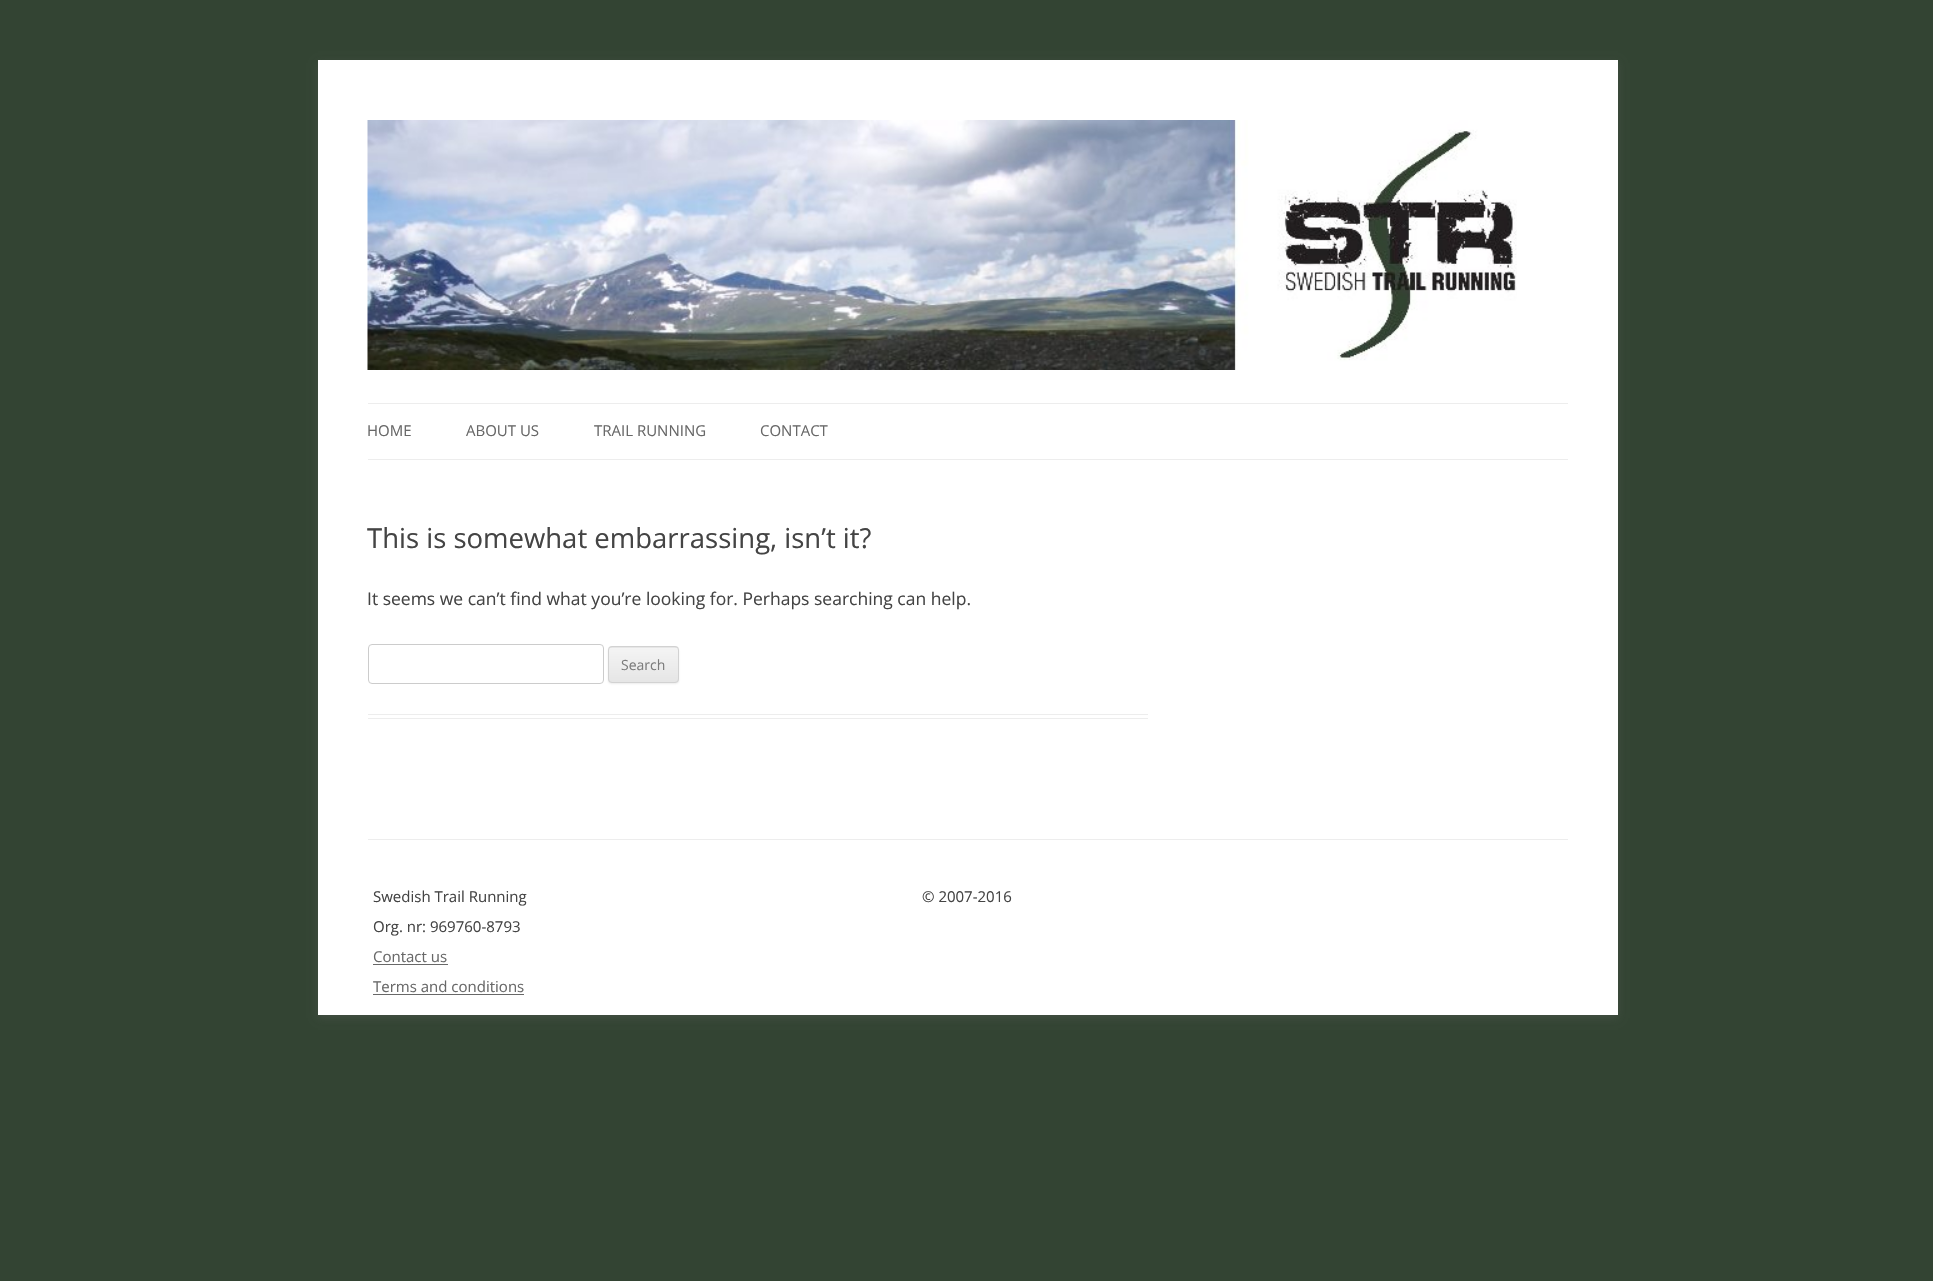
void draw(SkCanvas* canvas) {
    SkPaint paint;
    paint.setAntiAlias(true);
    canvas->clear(0xFF334433);
    paint.setColor(0x4D646464);
    paint.setMaskFilter(SkMaskFilter::MakeBlur(kNormal_SkBlurStyle, 4));
    canvas->drawRect(SkRect::MakeXYWH(318, 63, 1300, 955), paint);
    paint.setMaskFilter(nullptr);
    paint.setColor(0xFFFFFFFF);
    canvas->drawRect(SkRect::MakeXYWH(318, 60, 1300, 955), paint);
    canvas->drawImageRect(SkImages::DeferredFromEncodedData(SkData::MakeFromFileName("img1.png")), SkRect::MakeXYWH(367, 120, 1150, 250), SkSamplingOptions());
    paint.setColor(0xFFEDEDED);
    canvas->drawRect(SkRect::MakeXYWH(368, 403, 1200, 1), paint);
    canvas->drawRect(SkRect::MakeXYWH(368, 459, 1200, 1), paint);
    SkFont font1(fontMgr->matchFamilyStyle("Open Sans", SkFontStyle::Normal()), 15);
    font1.setSubpixel(true);
    paint.setColor(0xFF686868);
    canvas->drawString("HOME", 367, 436, font1, paint);
    canvas->drawString("ABOUT US", 466, 436, font1, paint);
    canvas->drawString("TRAIL RUNNING", 594, 436, font1, paint);
    canvas->drawString("CONTACT", 760, 436, font1, paint);
    paint.setColor(0xFFEDEDED);
    canvas->drawRect(SkRect::MakeXYWH(368, 714, 780, 1), paint);
    canvas->drawRect(SkRect::MakeXYWH(368, 718, 780, 1), paint);
    SkFont font2(fontMgr->matchFamilyStyle("Open Sans", SkFontStyle::Normal()), 27.5f);
    font2.setSubpixel(true);
    paint.setColor(0xFF444444);
    canvas->drawString("This is somewhat embarrassing, isn’t it?", 367, 548, font2, paint);
    SkFont font3(fontMgr->matchFamilyStyle("Open Sans", SkFontStyle::Normal()), 17.5f);
    font3.setSubpixel(true);
    canvas->drawString("It seems we can’t find what you’re looking for. Perhaps searching can help.", 367, 605, font3, paint);
    paint.setStyle(SkPaint::kStroke_Style);
    paint.setStrokeWidth(1);
    paint.setColor(0xFFCCCCCC);
    canvas->drawRoundRect(SkRect::MakeXYWH(368.5f, 644.5f, 235, 39), 3.5f, 3.5f, paint);
    paint.setStyle(SkPaint::kFill_Style);
    paint.setColor(0x1A404040);
    paint.setMaskFilter(SkMaskFilter::MakeBlur(kNormal_SkBlurStyle, 1));
    canvas->drawRoundRect(SkRect::MakeXYWH(608, 648, 71, 36), 4, 4, paint);
    paint.setMaskFilter(nullptr);
    paint.setColor(0xFFE6E6E6);
    canvas->drawRoundRect(SkRect::MakeXYWH(608, 646, 71, 37), 4, 4, paint);
    canvas->save();
    canvas->clipPath(SkPathBuilder().moveTo(612, 646).lineTo(675, 646).cubicTo(677, 646, 679, 648, 679, 650).lineTo(679, 679).cubicTo(679, 681, 677, 683, 675, 683).lineTo(612, 683).cubicTo(610, 683, 608, 681, 608, 679).lineTo(608, 650).cubicTo(608, 648, 610, 646, 612, 646).close().detach(), true);
    {
        const SkColor colors[] = {0xFFF4F4F4, 0xFFE6E6E6};
        const float stops[] = {0, 1};
        const SkPoint ends[] = {{643, 648}, {643, 681}};
        paint.setShader(SkGradientShader::MakeLinear(ends, colors, stops, 2, SkTileMode::kClamp));
        paint.setAlpha(255);
    }
    canvas->drawRect(SkRect::MakeXYWH(608, 648, 71, 33), paint);
    canvas->restore();
    paint.setStyle(SkPaint::kStroke_Style);
    paint.setShader(nullptr);
    paint.setColor(0xFFD2D2D2);
    canvas->drawRoundRect(SkRect::MakeXYWH(608.5f, 646.5f, 70, 36), 3.5f, 3.5f, paint);
    SkFont font4(fontMgr->matchFamilyStyle("Open Sans", SkFontStyle::Normal()), 14);
    font4.setSubpixel(true);
    paint.setStyle(SkPaint::kFill_Style);
    paint.setColor(0xFF7C7C7C);
    canvas->drawString("Search", 621, 670, font4, paint);
    paint.setColor(0xFFEDEDED);
    canvas->drawRect(SkRect::MakeXYWH(368, 839, 1200, 1), paint);
    paint.setColor(0xFF444444);
    canvas->drawString("Swedish Trail Running", 373, 902, font1, paint);
    canvas->drawString("Org. nr: 969760-8793", 373, 932, font1, paint);
    paint.setColor(0xFF686868);
    canvas->drawString("Contact us", 373, 962, font1, paint);
    canvas->drawRect(SkRect::MakeXYWH(373, 964, 75, 1), paint);
    canvas->drawString("Terms and conditions", 373, 992, font1, paint);
    canvas->drawRect(SkRect::MakeXYWH(373, 994, 151, 1), paint);
    paint.setColor(0xFF444444);
    canvas->drawString("© 2007-2016", 922, 902, font1, paint);
}
